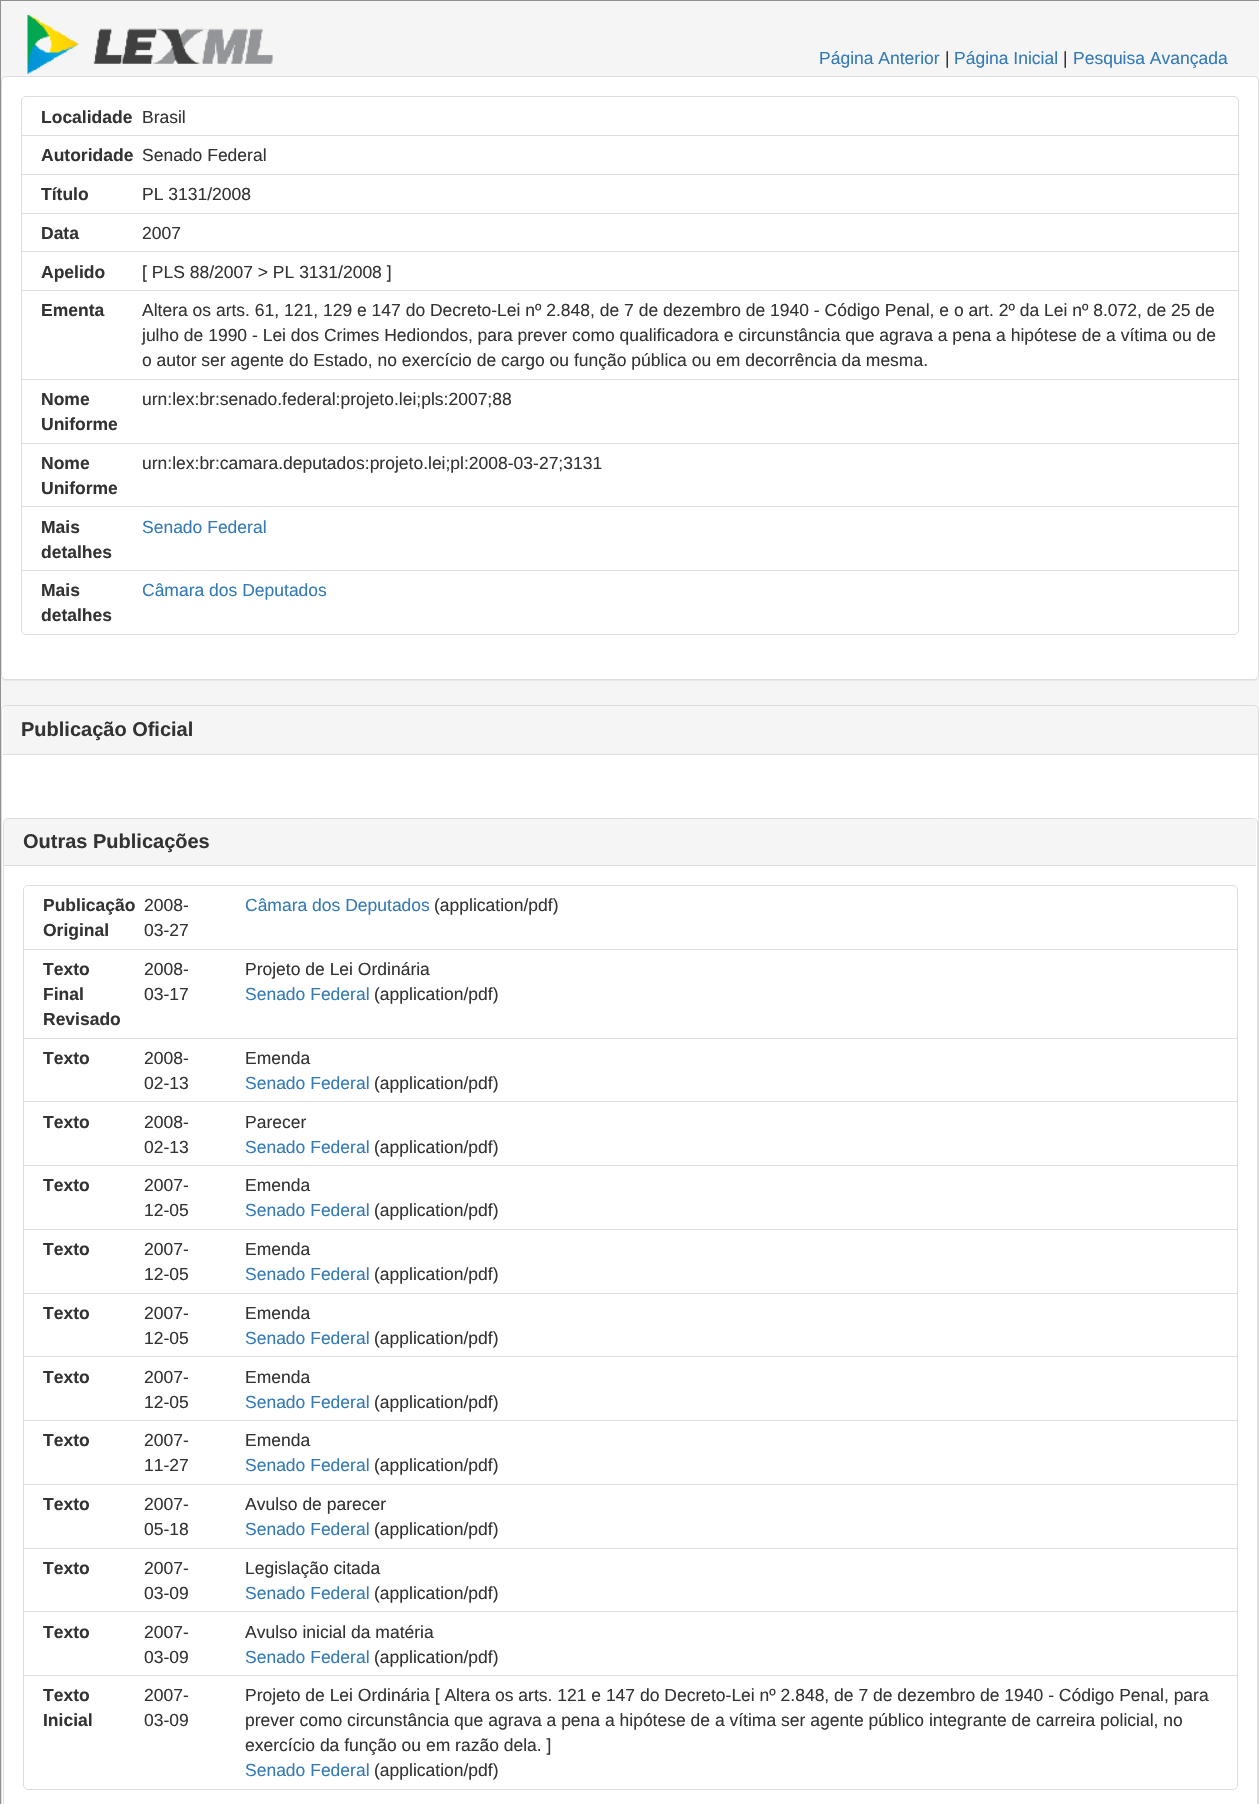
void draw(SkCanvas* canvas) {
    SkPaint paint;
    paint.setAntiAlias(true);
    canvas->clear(0xFFF5F5F5);
    paint.setStyle(SkPaint::kStroke_Style);
    paint.setStrokeWidth(1);
    paint.setColor(0xFF909090);
    canvas->drawRect(SkRect::MakeXYWH(0.5f, 0.5f, 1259, 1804), paint);
    canvas->drawImageRect(SkImages::DeferredFromEncodedData(SkData::MakeFromFileName("img1.png")), SkRect::MakeXYWH(27, 13, 246, 61), SkSamplingOptions());
    SkFont font1(fontMgr->matchFamilyStyle("Liberation Sans", SkFontStyle::Normal()), 17.5f);
    font1.setSubpixel(true);
    paint.setStyle(SkPaint::kFill_Style);
    paint.setColor(0xFF337AB7);
    canvas->drawString("Página Anterior", 819, 64, font1, paint);
    paint.setColor(0xFF333333);
    canvas->drawString("|", 945, 64, font1, paint);
    paint.setColor(0xFF337AB7);
    canvas->drawString("Página Inicial", 954, 64, font1, paint);
    paint.setColor(0xFF333333);
    canvas->drawString("|", 1063, 64, font1, paint);
    paint.setColor(0xFF337AB7);
    canvas->drawString("Pesquisa Avançada", 1073, 64, font1, paint);
    paint.setColor(0x0D000000);
    paint.setMaskFilter(SkMaskFilter::MakeBlur(kNormal_SkBlurStyle, 0.5f));
    canvas->drawRoundRect(SkRect::MakeXYWH(1, 78, 1258, 603), 5, 5, paint);
    paint.setMaskFilter(nullptr);
    paint.setColor(0xFFFFFFFF);
    canvas->drawRoundRect(SkRect::MakeXYWH(1.5f, 76.5f, 1257, 603), 4.5f, 4.5f, paint);
    paint.setStyle(SkPaint::kStroke_Style);
    paint.setColor(0xFFDDDDDD);
    canvas->drawRoundRect(SkRect::MakeXYWH(1.5f, 76.5f, 1257, 603), 4.5f, 4.5f, paint);
    canvas->drawPath(SkPathBuilder().moveTo(26, 96.5f).lineTo(1234, 96.5f).cubicTo(1236.5f, 96.5f, 1238.5f, 98.5f, 1238.5f, 101).lineTo(1238.5f, 135.5f).lineTo(21.5f, 135.5f).lineTo(21.5f, 101).cubicTo(21.5f, 98.5f, 23.5f, 96.5f, 26, 96.5f).close().detach(), paint);
    SkFont font2(fontMgr->matchFamilyStyle("Liberation Sans", SkFontStyle::Bold()), 17.5f);
    font2.setSubpixel(true);
    paint.setStyle(SkPaint::kFill_Style);
    paint.setColor(0xFF333333);
    canvas->drawString("Localidade", 41, 123, font2, paint);
    canvas->drawString("Brasil", 142, 123, font1, paint);
    paint.setStyle(SkPaint::kStroke_Style);
    paint.setColor(0xFFDDDDDD);
    canvas->drawRect(SkRect::MakeXYWH(21.5f, 135.5f, 1217, 39), paint);
    paint.setStyle(SkPaint::kFill_Style);
    paint.setColor(0xFF333333);
    canvas->drawString("Autoridade", 41, 161, font2, paint);
    canvas->drawString("Senado Federal", 142, 161, font1, paint);
    paint.setStyle(SkPaint::kStroke_Style);
    paint.setColor(0xFFDDDDDD);
    canvas->drawRect(SkRect::MakeXYWH(21.5f, 174.5f, 1217, 39), paint);
    paint.setStyle(SkPaint::kFill_Style);
    paint.setColor(0xFF333333);
    canvas->drawString("Título", 41, 200, font2, paint);
    canvas->drawString("PL 3131/2008", 142, 200, font1, paint);
    paint.setStyle(SkPaint::kStroke_Style);
    paint.setColor(0xFFDDDDDD);
    canvas->drawRect(SkRect::MakeXYWH(21.5f, 213.5f, 1217, 39), paint);
    paint.setStyle(SkPaint::kFill_Style);
    paint.setColor(0xFF333333);
    canvas->drawString("Data", 41, 239, font2, paint);
    canvas->drawString("2007", 142, 239, font1, paint);
    paint.setColor(0xFFFFFFFF);
    canvas->drawRect(SkRect::MakeXYWH(22, 252, 1216, 1), paint);
    paint.setStyle(SkPaint::kStroke_Style);
    paint.setColor(0xFFDDDDDD);
    canvas->drawRect(SkRect::MakeXYWH(21.5f, 251.5f, 1217, 39), paint);
    paint.setStyle(SkPaint::kFill_Style);
    paint.setColor(0xFF333333);
    canvas->drawString("Apelido", 41, 278, font2, paint);
    canvas->drawString("[ PLS 88/2007 > PL 3131/2008 ]", 142, 278, font1, paint);
    paint.setStyle(SkPaint::kStroke_Style);
    paint.setColor(0xFFDDDDDD);
    canvas->drawRect(SkRect::MakeXYWH(21.5f, 290.5f, 1217, 89), paint);
    paint.setStyle(SkPaint::kFill_Style);
    paint.setColor(0xFF333333);
    canvas->drawString("Ementa", 41, 316, font2, paint);
    canvas->drawString("Altera os arts. 61, 121, 129 e 147 do Decreto-Lei nº 2.848, de 7 de dezembro de 1940 - Código Penal, e o art. 2º da Lei nº 8.072, de 25 de", 142, 316, font1, paint);
    canvas->drawString("julho de 1990 - Lei dos Crimes Hediondos, para prever como qualificadora e circunstância que agrava a pena a hipótese de a vítima ou de", 142, 341, font1, paint);
    canvas->drawString("o autor ser agente do Estado, no exercício de cargo ou função pública ou em decorrência da mesma.", 142, 366, font1, paint);
    paint.setStyle(SkPaint::kStroke_Style);
    paint.setColor(0xFFDDDDDD);
    canvas->drawRect(SkRect::MakeXYWH(21.5f, 379.5f, 1217, 64), paint);
    paint.setStyle(SkPaint::kFill_Style);
    paint.setColor(0xFF333333);
    canvas->drawString("Nome", 41, 405, font2, paint);
    canvas->drawString("Uniforme", 41, 430, font2, paint);
    canvas->drawString("urn:lex:br:senado.federal:projeto.lei;pls:2007;88", 142, 405, font1, paint);
    paint.setStyle(SkPaint::kStroke_Style);
    paint.setColor(0xFFDDDDDD);
    canvas->drawRect(SkRect::MakeXYWH(21.5f, 443.5f, 1217, 64), paint);
    paint.setStyle(SkPaint::kFill_Style);
    paint.setColor(0xFF333333);
    canvas->drawString("Nome", 41, 469, font2, paint);
    canvas->drawString("Uniforme", 41, 494, font2, paint);
    canvas->drawString("urn:lex:br:camara.deputados:projeto.lei;pl:2008-03-27;3131", 142, 469, font1, paint);
    paint.setColor(0xFFFFFFFF);
    canvas->drawRect(SkRect::MakeXYWH(22, 507, 1216, 1), paint);
    paint.setStyle(SkPaint::kStroke_Style);
    paint.setColor(0xFFDDDDDD);
    canvas->drawRect(SkRect::MakeXYWH(21.5f, 506.5f, 1217, 64), paint);
    paint.setStyle(SkPaint::kFill_Style);
    paint.setColor(0xFF333333);
    canvas->drawString("Mais", 41, 533, font2, paint);
    canvas->drawString("detalhes", 41, 558, font2, paint);
    paint.setColor(0xFF337AB7);
    canvas->drawString("Senado Federal", 142, 533, font1, paint);
    paint.setColor(0xFFFFFFFF);
    canvas->drawPath(SkPathBuilder().moveTo(21.5f, 570.5f).lineTo(1238.5f, 570.5f).lineTo(1238.5f, 630).cubicTo(1238.5f, 632.5f, 1236.5f, 634.5f, 1234, 634.5f).lineTo(26, 634.5f).cubicTo(23.5f, 634.5f, 21.5f, 632.5f, 21.5f, 630).close().detach(), paint);
    paint.setStyle(SkPaint::kStroke_Style);
    paint.setColor(0xFFDDDDDD);
    canvas->drawPath(SkPathBuilder().moveTo(21.5f, 570.5f).lineTo(1238.5f, 570.5f).lineTo(1238.5f, 630).cubicTo(1238.5f, 632.5f, 1236.5f, 634.5f, 1234, 634.5f).lineTo(26, 634.5f).cubicTo(23.5f, 634.5f, 21.5f, 632.5f, 21.5f, 630).close().detach(), paint);
    paint.setStyle(SkPaint::kFill_Style);
    paint.setColor(0xFF333333);
    canvas->drawString("Mais", 41, 596, font2, paint);
    canvas->drawString("detalhes", 41, 621, font2, paint);
    paint.setColor(0xFF337AB7);
    canvas->drawString("Câmara dos Deputados", 142, 596, font1, paint);
    paint.setColor(0xFFFFFFFF);
    canvas->drawRoundRect(SkRect::MakeXYWH(1.5f, 705.5f, 1257, 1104), 4.5f, 4.5f, paint);
    paint.setStyle(SkPaint::kStroke_Style);
    paint.setColor(0xFFDDDDDD);
    canvas->drawRoundRect(SkRect::MakeXYWH(1.5f, 705.5f, 1257, 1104), 4.5f, 4.5f, paint);
    paint.setStyle(SkPaint::kFill_Style);
    paint.setColor(0xFFF5F5F5);
    canvas->drawPath(SkPathBuilder().moveTo(7, 706).lineTo(1254, 706).cubicTo(1256, 706, 1258, 708, 1258, 710).lineTo(1258, 755).lineTo(3, 755).lineTo(3, 710).cubicTo(3, 708, 5, 706, 7, 706).close().detach(), paint);
    paint.setColor(0xFFDDDDDD);
    canvas->drawRect(SkRect::MakeXYWH(3, 754, 1255, 1), paint);
    SkFont font3(fontMgr->matchFamilyStyle("Liberation Sans", SkFontStyle::Bold()), 20);
    font3.setSubpixel(true);
    paint.setColor(0xFF333333);
    canvas->drawString("Publicação Oficial", 21, 736, font3, paint);
    paint.setStyle(SkPaint::kStroke_Style);
    paint.setColor(0xFFDDDDDD);
    canvas->drawRoundRect(SkRect::MakeXYWH(3.5f, 818.5f, 1254, 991), 4.5f, 4.5f, paint);
    paint.setStyle(SkPaint::kFill_Style);
    paint.setColor(0xFFF5F5F5);
    canvas->drawPath(SkPathBuilder().moveTo(8, 819).lineTo(1252, 819).cubicTo(1254, 819, 1256, 821, 1256, 823).lineTo(1256, 866).lineTo(4, 866).lineTo(4, 823).cubicTo(4, 821, 6, 819, 8, 819).close().detach(), paint);
    paint.setColor(0xFFDDDDDD);
    canvas->drawRect(SkRect::MakeXYWH(4, 865, 1252, 1), paint);
    paint.setColor(0xFF333333);
    canvas->drawString("Outras Publicações", 23, 848, font3, paint);
    paint.setStyle(SkPaint::kStroke_Style);
    paint.setColor(0xFFDDDDDD);
    canvas->drawPath(SkPathBuilder().moveTo(28, 885.5f).lineTo(1233, 885.5f).cubicTo(1235.5f, 885.5f, 1237.5f, 887.5f, 1237.5f, 890).lineTo(1237.5f, 949.5f).lineTo(23.5f, 949.5f).lineTo(23.5f, 890).cubicTo(23.5f, 887.5f, 25.5f, 885.5f, 28, 885.5f).close().detach(), paint);
    paint.setStyle(SkPaint::kFill_Style);
    paint.setColor(0xFF333333);
    canvas->drawString("Publicação", 43, 911, font2, paint);
    canvas->drawString("Original", 43, 936, font2, paint);
    canvas->drawString("2008-", 144, 911, font1, paint);
    canvas->drawString("03-27", 144, 936, font1, paint);
    paint.setColor(0xFF337AB7);
    canvas->drawString("Câmara dos Deputados", 245, 911, font1, paint);
    paint.setColor(0xFF333333);
    canvas->drawString("(application/pdf)", 434, 911, font1, paint);
    paint.setStyle(SkPaint::kStroke_Style);
    paint.setColor(0xFFDDDDDD);
    canvas->drawRect(SkRect::MakeXYWH(23.5f, 949.5f, 1214, 89), paint);
    paint.setStyle(SkPaint::kFill_Style);
    paint.setColor(0xFF333333);
    canvas->drawString("Texto", 43, 975, font2, paint);
    canvas->drawString("Final", 43, 1000, font2, paint);
    canvas->drawString("Revisado", 43, 1025, font2, paint);
    canvas->drawString("2008-", 144, 975, font1, paint);
    canvas->drawString("03-17", 144, 1000, font1, paint);
    canvas->drawString("Projeto de Lei Ordinária", 245, 975, font1, paint);
    paint.setColor(0xFF337AB7);
    canvas->drawString("Senado Federal", 245, 1000, font1, paint);
    paint.setColor(0xFF333333);
    canvas->drawString("(application/pdf)", 374, 1000, font1, paint);
    paint.setStyle(SkPaint::kStroke_Style);
    paint.setColor(0xFFDDDDDD);
    canvas->drawRect(SkRect::MakeXYWH(23.5f, 1038.5f, 1214, 64), paint);
    paint.setStyle(SkPaint::kFill_Style);
    paint.setColor(0xFF333333);
    canvas->drawString("Texto", 43, 1064, font2, paint);
    canvas->drawString("2008-", 144, 1064, font1, paint);
    canvas->drawString("02-13", 144, 1089, font1, paint);
    canvas->drawString("Emenda", 245, 1064, font1, paint);
    paint.setColor(0xFF337AB7);
    canvas->drawString("Senado Federal", 245, 1089, font1, paint);
    paint.setColor(0xFF333333);
    canvas->drawString("(application/pdf)", 374, 1089, font1, paint);
    paint.setColor(0xFFFFFFFF);
    canvas->drawRect(SkRect::MakeXYWH(24, 1102, 1213, 1), paint);
    paint.setStyle(SkPaint::kStroke_Style);
    paint.setColor(0xFFDDDDDD);
    canvas->drawRect(SkRect::MakeXYWH(23.5f, 1101.5f, 1214, 64), paint);
    paint.setStyle(SkPaint::kFill_Style);
    paint.setColor(0xFF333333);
    canvas->drawString("Texto", 43, 1128, font2, paint);
    canvas->drawString("2008-", 144, 1128, font1, paint);
    canvas->drawString("02-13", 144, 1153, font1, paint);
    canvas->drawString("Parecer", 245, 1128, font1, paint);
    paint.setColor(0xFF337AB7);
    canvas->drawString("Senado Federal", 245, 1153, font1, paint);
    paint.setColor(0xFF333333);
    canvas->drawString("(application/pdf)", 374, 1153, font1, paint);
    paint.setStyle(SkPaint::kStroke_Style);
    paint.setColor(0xFFDDDDDD);
    canvas->drawRect(SkRect::MakeXYWH(23.5f, 1165.5f, 1214, 64), paint);
    paint.setStyle(SkPaint::kFill_Style);
    paint.setColor(0xFF333333);
    canvas->drawString("Texto", 43, 1191, font2, paint);
    canvas->drawString("2007-", 144, 1191, font1, paint);
    canvas->drawString("12-05", 144, 1216, font1, paint);
    canvas->drawString("Emenda", 245, 1191, font1, paint);
    paint.setColor(0xFF337AB7);
    canvas->drawString("Senado Federal", 245, 1216, font1, paint);
    paint.setColor(0xFF333333);
    canvas->drawString("(application/pdf)", 374, 1216, font1, paint);
    paint.setStyle(SkPaint::kStroke_Style);
    paint.setColor(0xFFDDDDDD);
    canvas->drawRect(SkRect::MakeXYWH(23.5f, 1229.5f, 1214, 64), paint);
    paint.setStyle(SkPaint::kFill_Style);
    paint.setColor(0xFF333333);
    canvas->drawString("Texto", 43, 1255, font2, paint);
    canvas->drawString("2007-", 144, 1255, font1, paint);
    canvas->drawString("12-05", 144, 1280, font1, paint);
    canvas->drawString("Emenda", 245, 1255, font1, paint);
    paint.setColor(0xFF337AB7);
    canvas->drawString("Senado Federal", 245, 1280, font1, paint);
    paint.setColor(0xFF333333);
    canvas->drawString("(application/pdf)", 374, 1280, font1, paint);
    paint.setStyle(SkPaint::kStroke_Style);
    paint.setColor(0xFFDDDDDD);
    canvas->drawRect(SkRect::MakeXYWH(23.5f, 1293.5f, 1214, 64), paint);
    paint.setStyle(SkPaint::kFill_Style);
    paint.setColor(0xFF333333);
    canvas->drawString("Texto", 43, 1319, font2, paint);
    canvas->drawString("2007-", 144, 1319, font1, paint);
    canvas->drawString("12-05", 144, 1344, font1, paint);
    canvas->drawString("Emenda", 245, 1319, font1, paint);
    paint.setColor(0xFF337AB7);
    canvas->drawString("Senado Federal", 245, 1344, font1, paint);
    paint.setColor(0xFF333333);
    canvas->drawString("(application/pdf)", 374, 1344, font1, paint);
    paint.setColor(0xFFFFFFFF);
    canvas->drawRect(SkRect::MakeXYWH(24, 1357, 1213, 1), paint);
    paint.setStyle(SkPaint::kStroke_Style);
    paint.setColor(0xFFDDDDDD);
    canvas->drawRect(SkRect::MakeXYWH(23.5f, 1356.5f, 1214, 64), paint);
    paint.setStyle(SkPaint::kFill_Style);
    paint.setColor(0xFF333333);
    canvas->drawString("Texto", 43, 1383, font2, paint);
    canvas->drawString("2007-", 144, 1383, font1, paint);
    canvas->drawString("12-05", 144, 1408, font1, paint);
    canvas->drawString("Emenda", 245, 1383, font1, paint);
    paint.setColor(0xFF337AB7);
    canvas->drawString("Senado Federal", 245, 1408, font1, paint);
    paint.setColor(0xFF333333);
    canvas->drawString("(application/pdf)", 374, 1408, font1, paint);
    paint.setStyle(SkPaint::kStroke_Style);
    paint.setColor(0xFFDDDDDD);
    canvas->drawRect(SkRect::MakeXYWH(23.5f, 1420.5f, 1214, 64), paint);
    paint.setStyle(SkPaint::kFill_Style);
    paint.setColor(0xFF333333);
    canvas->drawString("Texto", 43, 1446, font2, paint);
    canvas->drawString("2007-", 144, 1446, font1, paint);
    canvas->drawString("11-27", 144, 1471, font1, paint);
    canvas->drawString("Emenda", 245, 1446, font1, paint);
    paint.setColor(0xFF337AB7);
    canvas->drawString("Senado Federal", 245, 1471, font1, paint);
    paint.setColor(0xFF333333);
    canvas->drawString("(application/pdf)", 374, 1471, font1, paint);
    paint.setStyle(SkPaint::kStroke_Style);
    paint.setColor(0xFFDDDDDD);
    canvas->drawRect(SkRect::MakeXYWH(23.5f, 1484.5f, 1214, 64), paint);
    paint.setStyle(SkPaint::kFill_Style);
    paint.setColor(0xFF333333);
    canvas->drawString("Texto", 43, 1510, font2, paint);
    canvas->drawString("2007-", 144, 1510, font1, paint);
    canvas->drawString("05-18", 144, 1535, font1, paint);
    canvas->drawString("Avulso de parecer", 245, 1510, font1, paint);
    paint.setColor(0xFF337AB7);
    canvas->drawString("Senado Federal", 245, 1535, font1, paint);
    paint.setColor(0xFF333333);
    canvas->drawString("(application/pdf)", 374, 1535, font1, paint);
    paint.setStyle(SkPaint::kStroke_Style);
    paint.setColor(0xFFDDDDDD);
    canvas->drawRect(SkRect::MakeXYWH(23.5f, 1548.5f, 1214, 64), paint);
    paint.setStyle(SkPaint::kFill_Style);
    paint.setColor(0xFF333333);
    canvas->drawString("Texto", 43, 1574, font2, paint);
    canvas->drawString("2007-", 144, 1574, font1, paint);
    canvas->drawString("03-09", 144, 1599, font1, paint);
    canvas->drawString("Legislação citada", 245, 1574, font1, paint);
    paint.setColor(0xFF337AB7);
    canvas->drawString("Senado Federal", 245, 1599, font1, paint);
    paint.setColor(0xFF333333);
    canvas->drawString("(application/pdf)", 374, 1599, font1, paint);
    paint.setColor(0xFFFFFFFF);
    canvas->drawRect(SkRect::MakeXYWH(24, 1612, 1213, 1), paint);
    paint.setStyle(SkPaint::kStroke_Style);
    paint.setColor(0xFFDDDDDD);
    canvas->drawRect(SkRect::MakeXYWH(23.5f, 1611.5f, 1214, 64), paint);
    paint.setStyle(SkPaint::kFill_Style);
    paint.setColor(0xFF333333);
    canvas->drawString("Texto", 43, 1638, font2, paint);
    canvas->drawString("2007-", 144, 1638, font1, paint);
    canvas->drawString("03-09", 144, 1663, font1, paint);
    canvas->drawString("Avulso inicial da matéria", 245, 1638, font1, paint);
    paint.setColor(0xFF337AB7);
    canvas->drawString("Senado Federal", 245, 1663, font1, paint);
    paint.setColor(0xFF333333);
    canvas->drawString("(application/pdf)", 374, 1663, font1, paint);
    paint.setColor(0xFFFFFFFF);
    canvas->drawPath(SkPathBuilder().moveTo(23.5f, 1675.5f).lineTo(1237.5f, 1675.5f).lineTo(1237.5f, 1785).cubicTo(1237.5f, 1787.5f, 1235.5f, 1789.5f, 1233, 1789.5f).lineTo(28, 1789.5f).cubicTo(25.5f, 1789.5f, 23.5f, 1787.5f, 23.5f, 1785).close().detach(), paint);
    paint.setStyle(SkPaint::kStroke_Style);
    paint.setColor(0xFFDDDDDD);
    canvas->drawPath(SkPathBuilder().moveTo(23.5f, 1675.5f).lineTo(1237.5f, 1675.5f).lineTo(1237.5f, 1785).cubicTo(1237.5f, 1787.5f, 1235.5f, 1789.5f, 1233, 1789.5f).lineTo(28, 1789.5f).cubicTo(25.5f, 1789.5f, 23.5f, 1787.5f, 23.5f, 1785).close().detach(), paint);
    paint.setStyle(SkPaint::kFill_Style);
    paint.setColor(0xFF333333);
    canvas->drawString("Texto", 43, 1701, font2, paint);
    canvas->drawString("Inicial", 43, 1726, font2, paint);
    canvas->drawString("2007-", 144, 1701, font1, paint);
    canvas->drawString("03-09", 144, 1726, font1, paint);
    canvas->drawString("Projeto de Lei Ordinária [ Altera os arts. 121 e 147 do Decreto-Lei nº 2.848, de 7 de dezembro de 1940 - Código Penal, para", 245, 1701, font1, paint);
    canvas->drawString("prever como circunstância que agrava a pena a hipótese de a vítima ser agente público integrante de carreira policial, no", 245, 1726, font1, paint);
    canvas->drawString("exercício da função ou em razão dela. ]", 245, 1751, font1, paint);
    paint.setColor(0xFF337AB7);
    canvas->drawString("Senado Federal", 245, 1776, font1, paint);
    paint.setColor(0xFF333333);
    canvas->drawString("(application/pdf)", 374, 1776, font1, paint);
}
